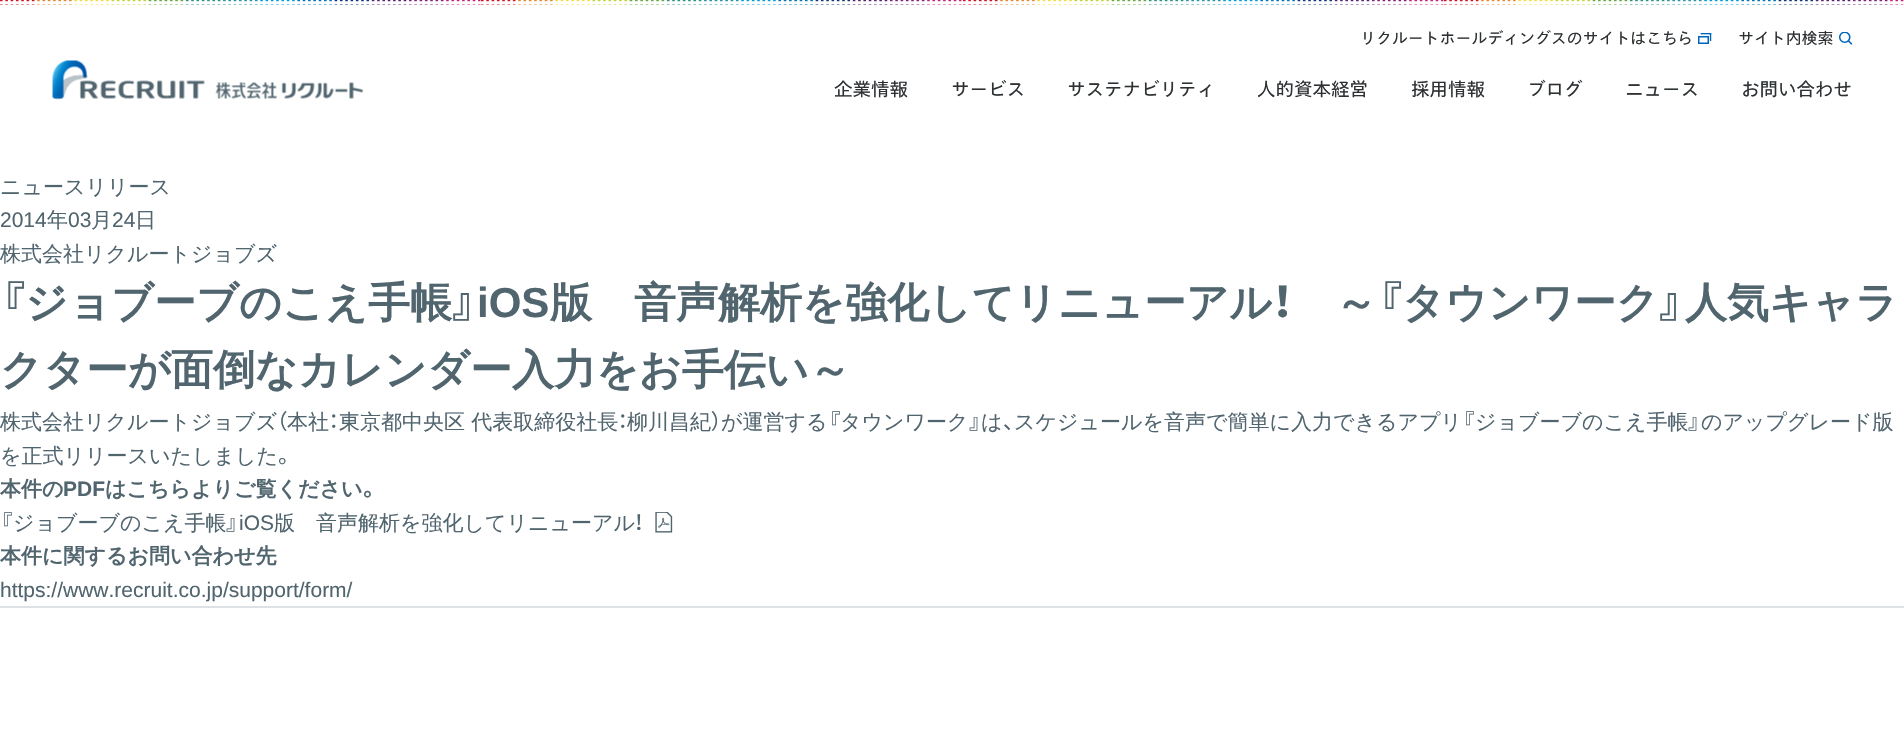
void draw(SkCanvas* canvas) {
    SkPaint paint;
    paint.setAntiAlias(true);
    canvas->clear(0xFFFFFFFF);
    canvas->drawImageRect(SkImages::DeferredFromEncodedData(SkData::MakeFromFileName("img1.png")), SkRect::MakeXYWH(0, 0, 1904, 5), SkSamplingOptions());
    canvas->drawImageRect(SkImages::DeferredFromEncodedData(SkData::MakeFromFileName("img2.png")), SkRect::MakeXYWH(52, 60, 312, 40), SkSamplingOptions());
    SkFont font1(fontMgr->matchFamilyStyle("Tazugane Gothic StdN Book", SkFontStyle::Normal()), 15.9f);
    font1.setSubpixel(true);
    paint.setColor(0xFF2D3133);
    canvas->drawString("リクルートホールディングスのサイトはこち", 1360, 44, font1, paint);
    canvas->drawString("ら", 1677, 44, font1, paint);
    canvas->drawImageRect(SkImages::DeferredFromEncodedData(SkData::MakeFromFileName("img3.png")), SkRect::MakeXYWH(1698, 33, 14, 11), SkSamplingOptions());
    canvas->drawString("サイト内検索", 1738, 44, font1, paint);
    canvas->drawImageRect(SkImages::DeferredFromEncodedData(SkData::MakeFromFileName("img4.png")), SkRect::MakeXYWH(1839, 32, 14, 13), SkSamplingOptions());
    SkFont font2(fontMgr->matchFamilyStyle("Tazugane Gothic StdN Book", SkFontStyle::Normal()), 18.5f);
    font2.setSubpixel(true);
    canvas->drawString("企業情報", 834, 96, font2, paint);
    canvas->drawString("サービス", 951, 96, font2, paint);
    canvas->drawString("サステナビリティ", 1067, 96, font2, paint);
    canvas->drawString("人的資本経営", 1257, 96, font2, paint);
    canvas->drawString("採用情報", 1411, 96, font2, paint);
    canvas->drawString("ブログ", 1527, 96, font2, paint);
    canvas->drawString("ニュース", 1625, 96, font2, paint);
    canvas->drawString("お問い合わせ", 1741, 96, font2, paint);
    SkFont font3(fontMgr->matchFamilyStyle("WenQuanYi Zen Hei", SkFontStyle(500, SkFontStyle::kNormal_Width, SkFontStyle::kUpright_Slant)), 21);
    font3.setSubpixel(true);
    paint.setColor(0xFF51656F);
    canvas->drawString("ニュースリリース", 0, 194, font3, paint);
    SkFont font4(fontMgr->matchFamilyStyle("Liberation Sans", SkFontStyle::Normal()), 21);
    font4.setSubpixel(true);
    canvas->drawString("2014", 0, 227, font4, paint);
    canvas->drawString("年", 47, 227, font3, paint);
    canvas->drawString("03", 68, 227, font4, paint);
    canvas->drawString("月", 91, 227, font3, paint);
    canvas->drawString("24", 112, 227, font4, paint);
    canvas->drawString("日", 135, 227, font3, paint);
    canvas->drawString("株式会社リクルートジョブズ", 0, 261, font3, paint);
    SkFont font5(fontMgr->matchFamilyStyle("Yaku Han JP", SkFontStyle::Bold()), 42);
    font5.setSubpixel(true);
    canvas->drawString("『", 0, 317, font5, paint);
    SkFont font6(fontMgr->matchFamilyStyle("WenQuanYi Zen Hei", SkFontStyle::Bold()), 42);
    font6.setSubpixel(true);
    canvas->drawString("ジョブーブのこえ手帳", 25, 317, font6, paint);
    canvas->drawString("』", 452, 317, font5, paint);
    SkFont font7(fontMgr->matchFamilyStyle("Liberation Sans", SkFontStyle::Bold()), 42);
    font7.setSubpixel(true);
    canvas->drawString("iOS", 477, 317, font7, paint);
    canvas->drawString("版　音声解析を強化してリニューアル", 550, 317, font6, paint);
    canvas->drawString("！", 1272, 317, font5, paint);
    canvas->drawString("～", 1335, 317, font6, paint);
    canvas->drawString("『", 1377, 317, font5, paint);
    canvas->drawString("タウンワーク", 1402, 317, font6, paint);
    canvas->drawString("』", 1659, 317, font5, paint);
    canvas->drawString("人気キャラ", 1685, 317, font6, paint);
    canvas->drawString("クターが面倒なカレンダー入力をお手伝い～", 0, 384, font6, paint);
    canvas->drawString("株式会社リクルートジョブズ", 0, 429, font3, paint);
    SkFont font8(fontMgr->matchFamilyStyle("Yaku Han JP", SkFontStyle::Normal()), 21);
    font8.setSubpixel(true);
    canvas->drawString("（", 277, 429, font8, paint);
    canvas->drawString("本社", 287, 429, font3, paint);
    canvas->drawString("：", 329, 429, font8, paint);
    canvas->drawString("東京都中央区 代表取締役社長", 339, 429, font3, paint);
    canvas->drawString("：", 618, 429, font8, paint);
    canvas->drawString("柳川昌紀", 627, 429, font3, paint);
    canvas->drawString("）", 711, 429, font8, paint);
    canvas->drawString("が運営する", 721, 429, font3, paint);
    canvas->drawString("『", 828, 429, font8, paint);
    canvas->drawString("タウンワーク", 840, 429, font3, paint);
    canvas->drawString("』", 969, 429, font8, paint);
    canvas->drawString("は", 981, 429, font3, paint);
    canvas->drawString("、", 1003, 429, font8, paint);
    canvas->drawString("スケジュールを音声で簡単に入力できるアプリ", 1014, 429, font3, paint);
    canvas->drawString("『", 1462, 429, font8, paint);
    canvas->drawString("ジョブーブのこえ手帳", 1475, 429, font3, paint);
    canvas->drawString("』", 1688, 429, font8, paint);
    canvas->drawString("のアップグレード版", 1701, 429, font3, paint);
    canvas->drawString("を正式リリースいたしました", 0, 463, font3, paint);
    canvas->drawString("。", 278, 463, font8, paint);
    SkFont font9(fontMgr->matchFamilyStyle("WenQuanYi Zen Hei", SkFontStyle::Bold()), 21);
    font9.setSubpixel(true);
    canvas->drawString("本件の", 0, 496, font9, paint);
    SkFont font10(fontMgr->matchFamilyStyle("Liberation Sans", SkFontStyle::Bold()), 21);
    font10.setSubpixel(true);
    canvas->drawString("PDF", 63, 496, font10, paint);
    canvas->drawString("はこちらよりご覧ください", 105, 496, font9, paint);
    SkFont font11(fontMgr->matchFamilyStyle("Yaku Han JP", SkFontStyle::Bold()), 21);
    font11.setSubpixel(true);
    canvas->drawString("。", 363, 496, font11, paint);
    canvas->drawString("『", 0, 530, font8, paint);
    canvas->drawString("ジョブーブのこえ手帳", 13, 530, font3, paint);
    canvas->drawString("』", 226, 530, font8, paint);
    canvas->drawString("iOS", 239, 530, font4, paint);
    canvas->drawString("版　音声解析を強化してリニューアル", 274, 530, font3, paint);
    canvas->drawString("！", 634, 530, font8, paint);
    canvas->drawImageRect(SkImages::DeferredFromEncodedData(SkData::MakeFromFileName("img5.png")), SkRect::MakeXYWH(655, 512, 18, 21), SkSamplingOptions());
    canvas->drawString("本件に関するお問い合わせ先", 0, 563, font9, paint);
    canvas->drawString("https://www.recruit.co.jp/support/form/", 0, 597, font4, paint);
    paint.setColor(0xFFDFE2E5);
    canvas->drawRect(SkRect::MakeXYWH(0, 606, 1904, 2), paint);
}
